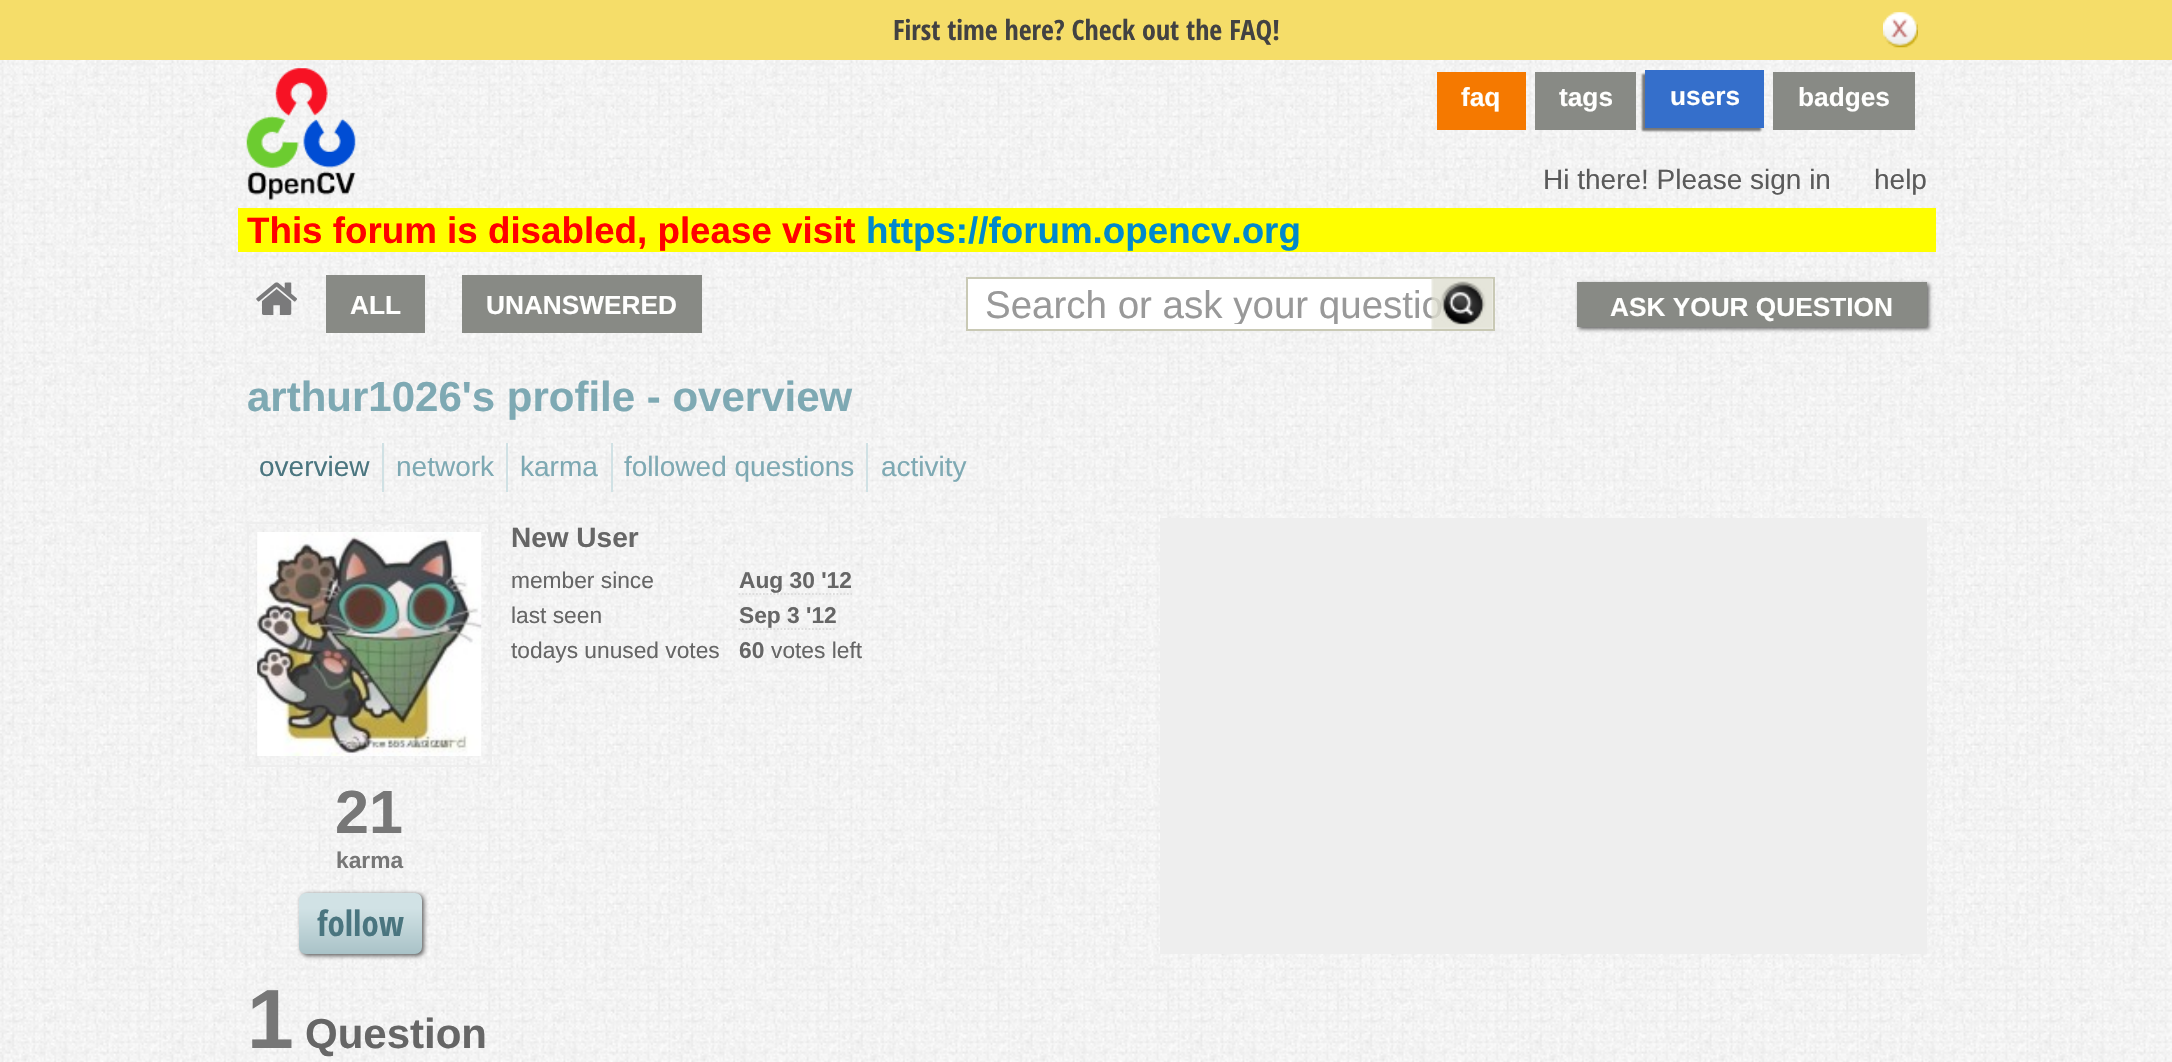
void draw(SkCanvas* canvas) {
    SkPaint paint;
    paint.setAntiAlias(true);
    canvas->clear(0xFFFFFFFF);
    canvas->drawImageRect(SkImages::DeferredFromEncodedData(SkData::MakeFromFileName("img1.png")), SkRect::MakeXYWH(0, 252, 2172, 810), SkSamplingOptions());
    paint.setColor(0xFFF5DD69);
    canvas->drawRect(SkRect::MakeXYWH(0, 0, 2172, 60), paint);
    SkFont font1(fontMgr->matchFamilyStyle("Open Sans Condensed", SkFontStyle::Bold()), 28);
    font1.setSubpixel(true);
    paint.setColor(0xFF424242);
    canvas->drawString("First time here? Check out the FAQ!", 893, 40, font1, paint);
    canvas->drawImageRect(SkImages::DeferredFromEncodedData(SkData::MakeFromFileName("img2.png")), SkRect::MakeXYWH(1883, 12, 35, 36), SkSamplingOptions());
    canvas->drawImageRect(SkImages::DeferredFromEncodedData(SkData::MakeFromFileName("img3.png")), SkRect::MakeXYWH(0, 60, 2172, 192), SkSamplingOptions());
    canvas->drawImageRect(SkImages::DeferredFromEncodedData(SkData::MakeFromFileName("img4.png")), SkRect::MakeXYWH(246, 68, 110, 132), SkSamplingOptions());
    paint.setColor(0xFFF57900);
    canvas->drawRect(SkRect::MakeXYWH(1437, 72, 89, 58), paint);
    SkFont font2(fontMgr->matchFamilyStyle("Liberation Sans", SkFontStyle::Bold()), 26.25f);
    font2.setSubpixel(true);
    paint.setColor(0xFFFFFFFE);
    canvas->drawString("faq", 1461, 106, font2, paint);
    paint.setColor(0xFF888A85);
    canvas->drawRect(SkRect::MakeXYWH(1535, 72, 101, 58), paint);
    paint.setColor(0xFFFFFFFE);
    canvas->drawString("tags", 1559, 106, font2, paint);
    paint.setColor(0xFF777777);
    paint.setMaskFilter(SkMaskFilter::MakeBlur(kNormal_SkBlurStyle, 1));
    canvas->drawRect(SkRect::MakeXYWH(1642, 74, 119, 57), paint);
    paint.setMaskFilter(nullptr);
    paint.setColor(0xFF356FCB);
    canvas->drawRect(SkRect::MakeXYWH(1645, 70, 119, 58), paint);
    paint.setColor(0xFFFFFFFE);
    canvas->drawString("users", 1670, 105, font2, paint);
    paint.setColor(0xFF888A85);
    canvas->drawRect(SkRect::MakeXYWH(1773, 72, 142, 58), paint);
    paint.setColor(0xFFFFFFFE);
    canvas->drawString("badges", 1798, 106, font2, paint);
    SkFont font3(fontMgr->matchFamilyStyle("Liberation Sans", SkFontStyle::Normal()), 28);
    font3.setSubpixel(true);
    paint.setColor(0xFF5A5A5A);
    canvas->drawString("Hi there! Please sign in", 1543, 189, font3, paint);
    canvas->drawString("help", 1874, 189, font3, paint);
    paint.setColor(0xFFFFFF00);
    canvas->drawRect(SkRect::MakeXYWH(238, 208, 1698, 44), paint);
    SkFont font4(fontMgr->matchFamilyStyle("Liberation Sans", SkFontStyle::Bold()), 36.75f);
    font4.setSubpixel(true);
    paint.setColor(0xFFFF0000);
    canvas->drawString("This forum is disabled, please visit", 247, 243, font4, paint);
    paint.setColor(0xFF0088CC);
    canvas->drawString("https://forum.opencv.org", 866, 243, font4, paint);
    canvas->drawImageRect(SkImages::DeferredFromEncodedData(SkData::MakeFromFileName("img5.png")), SkRect::MakeXYWH(256, 282, 41, 33), SkSamplingOptions());
    paint.setColor(0xFF888A85);
    canvas->drawRect(SkRect::MakeXYWH(326, 275, 99, 58), paint);
    paint.setColor(0xFFFFFFFE);
    canvas->drawString("ALL", 350, 314, font2, paint);
    paint.setColor(0xFF888A85);
    canvas->drawRect(SkRect::MakeXYWH(462, 275, 240, 58), paint);
    paint.setColor(0xFFFFFFFE);
    canvas->drawString("UNANSWERED", 486, 314, font2, paint);
    paint.setColor(0xFFFFFFFF);
    canvas->drawRect(SkRect::MakeXYWH(967, 278, 527, 52), paint);
    paint.setStyle(SkPaint::kStroke_Style);
    paint.setStrokeWidth(2);
    paint.setColor(0xFFC9C9B5);
    canvas->drawRect(SkRect::MakeXYWH(967, 278, 527, 52), paint);
    canvas->save();
    canvas->clipRect(SkRect::MakeXYWH(985, 284, 482, 40));
    SkFont font5(fontMgr->matchFamilyStyle("Liberation Sans", SkFontStyle::Normal()), 38.5f);
    font5.setSubpixel(true);
    paint.setStyle(SkPaint::kFill_Style);
    paint.setColor(0xFF999999);
    canvas->drawString("Search or ask your questio", 985, 318, font5, paint);
    canvas->restore();
    canvas->drawImageRect(SkImages::DeferredFromEncodedData(SkData::MakeFromFileName("img6.png")), SkRect::MakeXYWH(1431, 278, 62, 51), SkSamplingOptions());
    paint.setColor(0xFF636363);
    paint.setMaskFilter(SkMaskFilter::MakeBlur(kNormal_SkBlurStyle, 2));
    canvas->drawRect(SkRect::MakeXYWH(1579, 284, 350, 45), paint);
    paint.setMaskFilter(nullptr);
    paint.setColor(0xFF888A85);
    canvas->drawRect(SkRect::MakeXYWH(1577, 282, 350, 45), paint);
    paint.setColor(0xFFFFFFFE);
    canvas->drawString("ASK YOUR QUESTION", 1610, 316, font2, paint);
    SkFont font6(fontMgr->matchFamilyStyle("Liberation Sans", SkFontStyle::Bold()), 42);
    font6.setSubpixel(true);
    paint.setColor(0xFF7EA9B3);
    canvas->drawString("arthur1026's profile - overview", 247, 411, font6, paint);
    paint.setColor(0xFF4A757F);
    canvas->drawString("overview", 259, 476, font3, paint);
    paint.setColor(0xFFD0E1E4);
    canvas->drawRect(SkRect::MakeXYWH(382, 443, 2, 49), paint);
    paint.setColor(0xFF7EA9B3);
    canvas->drawString("network", 396, 476, font3, paint);
    paint.setColor(0xFFD0E1E4);
    canvas->drawRect(SkRect::MakeXYWH(506, 443, 2, 49), paint);
    paint.setColor(0xFF7EA9B3);
    canvas->drawString("karma", 520, 476, font3, paint);
    paint.setColor(0xFFD0E1E4);
    canvas->drawRect(SkRect::MakeXYWH(611, 443, 2, 49), paint);
    paint.setColor(0xFF7EA9B3);
    canvas->drawString("followed questions", 624, 476, font3, paint);
    paint.setColor(0xFFD0E1E4);
    canvas->drawRect(SkRect::MakeXYWH(866, 443, 2, 49), paint);
    paint.setColor(0xFF7EA9B3);
    canvas->drawString("activity", 881, 476, font3, paint);
    SkFont font7(fontMgr->matchFamilyStyle("Liberation Sans", SkFontStyle::Bold()), 28);
    font7.setSubpixel(true);
    paint.setColor(0xFF666666);
    canvas->drawString("New User", 511, 547, font7, paint);
    SkFont font8(fontMgr->matchFamilyStyle("Liberation Sans", SkFontStyle::Normal()), 22.75f);
    font8.setSubpixel(true);
    canvas->drawString("member since", 511, 588, font8, paint);
    SkFont font9(fontMgr->matchFamilyStyle("Liberation Sans", SkFontStyle::Bold()), 22.75f);
    font9.setSubpixel(true);
    canvas->drawString("Aug 30 '12", 739, 588, font9, paint);
    paint.setStyle(SkPaint::kStroke_Style);
    paint.setStrokeWidth(1.8f);
    paint.setColor(0xFFDDDDDD);
    paint.setPathEffect(SkDashPathEffect::Make({{1.75f, 1.75f}}, 0));
    canvas->drawPath(SkPathBuilder().moveTo(738.5f, 594).lineTo(852, 594).detach(), paint);
    paint.setPathEffect(nullptr);
    paint.setStyle(SkPaint::kFill_Style);
    paint.setColor(0xFF666666);
    canvas->drawString("last seen", 511, 623, font8, paint);
    canvas->drawString("Sep 3 '12", 739, 623, font9, paint);
    paint.setStyle(SkPaint::kStroke_Style);
    paint.setColor(0xFFDDDDDD);
    paint.setPathEffect(SkDashPathEffect::Make({{1.75f, 1.75f}}, 0));
    canvas->drawPath(SkPathBuilder().moveTo(738.5f, 629).lineTo(836.5f, 629).detach(), paint);
    paint.setPathEffect(nullptr);
    paint.setStyle(SkPaint::kFill_Style);
    paint.setColor(0xFF666666);
    canvas->drawString("todays unused votes", 511, 658, font8, paint);
    canvas->drawString("60", 739, 658, font9, paint);
    canvas->drawString("votes left", 771, 658, font8, paint);
    paint.setColor(0xFFEEEEEE);
    canvas->drawRect(SkRect::MakeXYWH(1160, 518, 767, 436), paint);
    paint.setStyle(SkPaint::kStroke_Style);
    paint.setStrokeWidth(2);
    canvas->drawRect(SkRect::MakeXYWH(248, 523, 243, 243), paint);
    canvas->drawImageRect(SkImages::DeferredFromEncodedData(SkData::MakeFromFileName("img7.png")), SkRect::MakeXYWH(257, 532, 225, 224), SkSamplingOptions());
    SkFont font10(fontMgr->matchFamilyStyle("Liberation Sans", SkFontStyle::Bold()), 61);
    font10.setSubpixel(true);
    paint.setStyle(SkPaint::kFill_Style);
    paint.setColor(0xFF777777);
    canvas->drawString("21", 335, 833, font10, paint);
    canvas->drawString("karma", 336, 868, font9, paint);
    paint.setColor(0xFF636363);
    paint.setMaskFilter(SkMaskFilter::MakeBlur(kNormal_SkBlurStyle, 2));
    canvas->drawRoundRect(SkRect::MakeXYWH(301, 894, 123, 62), 7, 7, paint);
    paint.setMaskFilter(nullptr);
    {
        const SkColor colors[] = {0xFFD1E2E5, 0xFFD1E2E5, 0xFFA9C2C7};
        const float stops[] = {0, 0.25f, 1};
        const SkPoint ends[] = {{361, 893}, {361, 954}};
        paint.setShader(SkGradientShader::MakeLinear(ends, colors, stops, 3, SkTileMode::kClamp));
        paint.setAlpha(255);
    }
    canvas->drawRoundRect(SkRect::MakeXYWH(299, 893, 123, 61), 7, 7, paint);
    SkFont font11(fontMgr->matchFamilyStyle("Open Sans Condensed", SkFontStyle::Bold()), 35);
    font11.setSubpixel(true);
    paint.setShader(nullptr);
    paint.setColor(0xFF4A757F);
    canvas->drawString("follow", 317, 936, font11, paint);
    SkFont font12(fontMgr->matchFamilyStyle("Liberation Sans", SkFontStyle::Bold()), 84);
    font12.setSubpixel(true);
    paint.setColor(0xFF777777);
    canvas->drawString("1", 247, 1048, font12, paint);
    paint.setColor(0xFF666666);
    canvas->drawString("Question", 305, 1048, font6, paint);
}
